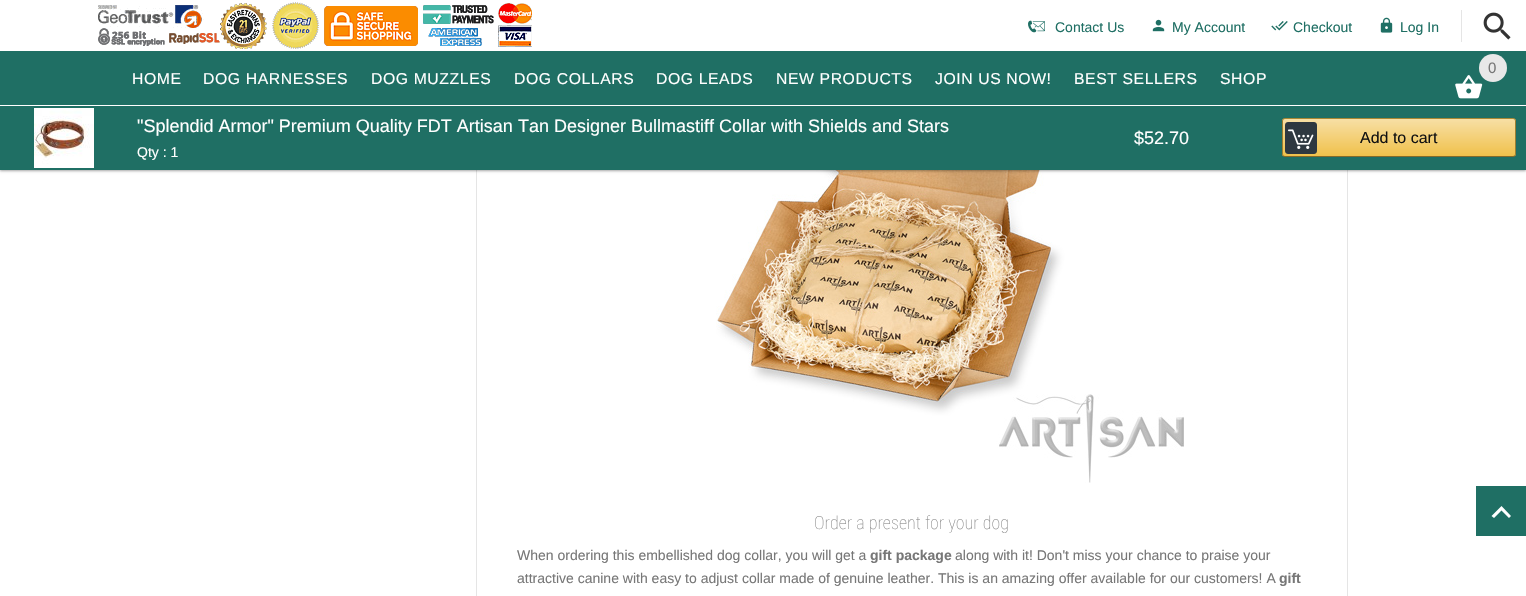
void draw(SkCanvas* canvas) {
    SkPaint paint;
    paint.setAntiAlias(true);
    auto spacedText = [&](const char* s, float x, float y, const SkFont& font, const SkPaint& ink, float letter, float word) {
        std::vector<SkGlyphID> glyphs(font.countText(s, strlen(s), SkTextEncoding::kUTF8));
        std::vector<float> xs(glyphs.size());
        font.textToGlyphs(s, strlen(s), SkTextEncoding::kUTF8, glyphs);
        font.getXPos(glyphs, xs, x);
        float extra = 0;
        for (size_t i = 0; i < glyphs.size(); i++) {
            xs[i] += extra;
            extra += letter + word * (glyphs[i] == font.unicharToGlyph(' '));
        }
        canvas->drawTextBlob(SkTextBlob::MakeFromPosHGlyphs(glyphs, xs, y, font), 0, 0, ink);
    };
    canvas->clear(0xFFFFFFFF);
    paint.setColor(0xFFE5E5E5);
    canvas->drawRect(SkRect::MakeXYWH(1347, 170, 1, 426), paint);
    canvas->drawRect(SkRect::MakeXYWH(476, 170, 1, 426), paint);
    canvas->drawImageRect(SkImages::DeferredFromEncodedData(SkData::MakeFromFileName("img10.png")), SkRect::MakeXYWH(716, 170, 468, 313), SkSamplingOptions());
    paint.setColor(0x3D000000);
    paint.setMaskFilter(SkMaskFilter::MakeBlur(kNormal_SkBlurStyle, 1));
    canvas->drawRect(SkRect::MakeXYWH(0, 1, 1526, 170), paint);
    paint.setMaskFilter(nullptr);
    paint.setColor(0x1F000000);
    paint.setMaskFilter(SkMaskFilter::MakeBlur(kNormal_SkBlurStyle, 1.5f));
    canvas->drawRect(SkRect::MakeXYWH(0, 1, 1526, 170), paint);
    paint.setMaskFilter(nullptr);
    paint.setColor(0xFF1F6F64);
    canvas->drawRect(SkRect::MakeXYWH(0, 51, 1526, 119), paint);
    paint.setColor(0xFFFFFFFF);
    canvas->drawRect(SkRect::MakeXYWH(0, 0, 1526, 51), paint);
    canvas->drawImageRect(SkImages::DeferredFromEncodedData(SkData::MakeFromFileName("img1.png")), SkRect::MakeXYWH(98, 2, 434, 47), SkSamplingOptions());
    paint.setColor(0xFFE5E5E5);
    canvas->drawRect(SkRect::MakeXYWH(1461, 10, 1, 32), paint);
    canvas->drawImageRect(SkImages::DeferredFromEncodedData(SkData::MakeFromFileName("img2.png")), SkRect::MakeXYWH(1028, 20, 17, 13), SkSamplingOptions());
    SkFont font1(fontMgr->matchFamilyStyle("Liberation Sans", SkFontStyle::Normal()), 14);
    font1.setSubpixel(true);
    paint.setColor(0xFF1F6F64);
    canvas->drawString("Contact Us", 1055, 32, font1, paint);
    canvas->drawImageRect(SkImages::DeferredFromEncodedData(SkData::MakeFromFileName("img3.png")), SkRect::MakeXYWH(1152, 19, 13, 13), SkSamplingOptions());
    canvas->drawString("My Account", 1172, 32, font1, paint);
    canvas->drawImageRect(SkImages::DeferredFromEncodedData(SkData::MakeFromFileName("img4.png")), SkRect::MakeXYWH(1271, 21, 17, 10), SkSamplingOptions());
    canvas->drawString("Checkout", 1293, 32, font1, paint);
    canvas->drawImageRect(SkImages::DeferredFromEncodedData(SkData::MakeFromFileName("img5.png")), SkRect::MakeXYWH(1380, 17, 13, 16), SkSamplingOptions());
    canvas->drawString("Log In", 1400, 32, font1, paint);
    canvas->drawImageRect(SkImages::DeferredFromEncodedData(SkData::MakeFromFileName("img6.png")), SkRect::MakeXYWH(1483, 12, 28, 28), SkSamplingOptions());
    paint.setColor(0xFFE8E8E8);
    canvas->drawCircle(1493, 68, 14, paint);
    SkFont font2(fontMgr->matchFamilyStyle("Liberation Sans", SkFontStyle::Normal()), 15);
    font2.setSubpixel(true);
    paint.setColor(0xFF777777);
    canvas->drawString("0", 1488, 73, font2, paint);
    canvas->drawImageRect(SkImages::DeferredFromEncodedData(SkData::MakeFromFileName("img7.png")), SkRect::MakeXYWH(1455, 75, 28, 24), SkSamplingOptions());
    SkFont font3(fontMgr->matchFamilyStyle("Liberation Sans", SkFontStyle::Normal()), 15.75f);
    font3.setSubpixel(true);
    paint.setColor(0xFFFFFFFF);
    spacedText("HOME", 132, 84, font3, paint, 0.6f, 0);
    spacedText("DOG HARNESSES", 203, 84, font3, paint, 0.6f, 0);
    spacedText("DOG MUZZLES", 371, 84, font3, paint, 0.6f, 0);
    spacedText("DOG COLLARS", 514, 84, font3, paint, 0.6f, 0);
    spacedText("DOG LEADS", 656, 84, font3, paint, 0.6f, 0);
    spacedText("NEW PRODUCTS", 776, 84, font3, paint, 0.6f, 0);
    spacedText("JOIN US NOW!", 935, 84, font3, paint, 0.6f, 0);
    spacedText("BEST SELLERS", 1074, 84, font3, paint, 0.6f, 0);
    spacedText("SHOP", 1220, 84, font3, paint, 0.6f, 0);
    canvas->drawRect(SkRect::MakeXYWH(0, 105, 1526, 1), paint);
    canvas->drawImageRect(SkImages::DeferredFromEncodedData(SkData::MakeFromFileName("img8.png")), SkRect::MakeXYWH(34, 108, 60, 60), SkSamplingOptions());
    SkFont font4(fontMgr->matchFamilyStyle("Liberation Sans", SkFontStyle::Normal()), 18);
    font4.setSubpixel(true);
    canvas->drawString("\"Splendid Armor\" Premium Quality FDT Artisan Tan Designer Bullmastiff Collar with Shields and Stars", 137, 132, font4, paint);
    canvas->drawString("Qty : 1", 137, 157, font1, paint);
    canvas->drawString("$52.70", 1134, 144, font4, paint);
    canvas->save();
    canvas->clipPath(SkPathBuilder().moveTo(1285, 118).lineTo(1513, 118).cubicTo(1514.5f, 118, 1516, 119.5f, 1516, 121).lineTo(1516, 154).cubicTo(1516, 155.5f, 1514.5f, 157, 1513, 157).lineTo(1285, 157).cubicTo(1283.5f, 157, 1282, 155.5f, 1282, 154).lineTo(1282, 121).cubicTo(1282, 119.5f, 1283.5f, 118, 1285, 118).close().detach(), true);
    {
        const SkColor colors[] = {0xFFF7DFA5, 0xFFF0C14B};
        const float stops[] = {0, 1};
        const SkPoint ends[] = {{1399, 119}, {1399, 156}};
        paint.setShader(SkGradientShader::MakeLinear(ends, colors, stops, 2, SkTileMode::kClamp));
        paint.setAlpha(255);
    }
    canvas->drawRect(SkRect::MakeXYWH(1282, 119, 234, 37), paint);
    canvas->restore();
    paint.setStyle(SkPaint::kStroke_Style);
    paint.setStrokeWidth(1);
    paint.setShader(nullptr);
    paint.setColor(0xFFA88734);
    canvas->drawPath(SkPathBuilder().moveTo(1283, 119).lineTo(1285, 118.5f).lineTo(1513, 118.5f).lineTo(1515, 119).detach(), paint);
    paint.setColor(0xFF9C7E31);
    canvas->drawPath(SkPathBuilder().moveTo(1515, 119).cubicTo(1515, 119.5f, 1515.5f, 120.5f, 1515.5f, 121).lineTo(1515.5f, 154).cubicTo(1515.5f, 154.5f, 1515, 155.5f, 1515, 156).detach(), paint);
    paint.setColor(0xFF846A29);
    canvas->drawPath(SkPathBuilder().moveTo(1515, 156).lineTo(1513, 156.5f).lineTo(1285, 156.5f).lineTo(1283, 156).detach(), paint);
    paint.setColor(0xFF9C7E31);
    canvas->drawPath(SkPathBuilder().moveTo(1283, 156).cubicTo(1283, 155.5f, 1282.5f, 154.5f, 1282.5f, 154).lineTo(1282.5f, 121).cubicTo(1282.5f, 120.5f, 1283, 119.5f, 1283, 119).detach(), paint);
    canvas->drawImageRect(SkImages::DeferredFromEncodedData(SkData::MakeFromFileName("img9.png")), SkRect::MakeXYWH(1285, 122, 32, 32), SkSamplingOptions());
    SkFont font5(fontMgr->matchFamilyStyle("Liberation Sans", SkFontStyle::Normal()), 16);
    font5.setSubpixel(true);
    paint.setStyle(SkPaint::kFill_Style);
    paint.setColor(0xFF111111);
    canvas->drawString("Add to cart", 1360, 143, font5, paint);
    SkFont font6(fontMgr->matchFamilyStyle("Roboto Condensed", SkFontStyle(100, SkFontStyle::kNormal_Width, SkFontStyle::kUpright_Slant)), 18);
    font6.setSubpixel(true);
    paint.setColor(0xFF878787);
    canvas->drawString("Order a present for your dog", 814, 529, font6, paint);
    paint.setColor(0xFF777777);
    canvas->drawString("When ordering this embellished dog collar, you will get a", 517, 560, font1, paint);
    SkFont font7(fontMgr->matchFamilyStyle("Liberation Sans", SkFontStyle::Bold()), 14);
    font7.setSubpixel(true);
    canvas->drawString("gift package", 870, 560, font7, paint);
    canvas->drawString("along with it! Don't miss your chance to praise your", 955, 560, font1, paint);
    canvas->drawString("attractive canine with easy to adjust collar made of genuine leather. This is an amazing offer available for our customers! A", 517, 583, font1, paint);
    canvas->drawString("gift", 1279, 583, font7, paint);
    paint.setColor(0xFF1F6F64);
    canvas->drawRect(SkRect::MakeXYWH(1476, 486, 50, 50), paint);
    paint.setColor(0xFFFFFFFF);
    canvas->drawPath(SkPathBuilder().moveTo(1494, 518).lineTo(1491.5f, 516).lineTo(1501.5f, 506).lineTo(1511, 516).lineTo(1509, 518).lineTo(1501.5f, 510.5f).close().detach(), paint);
}
